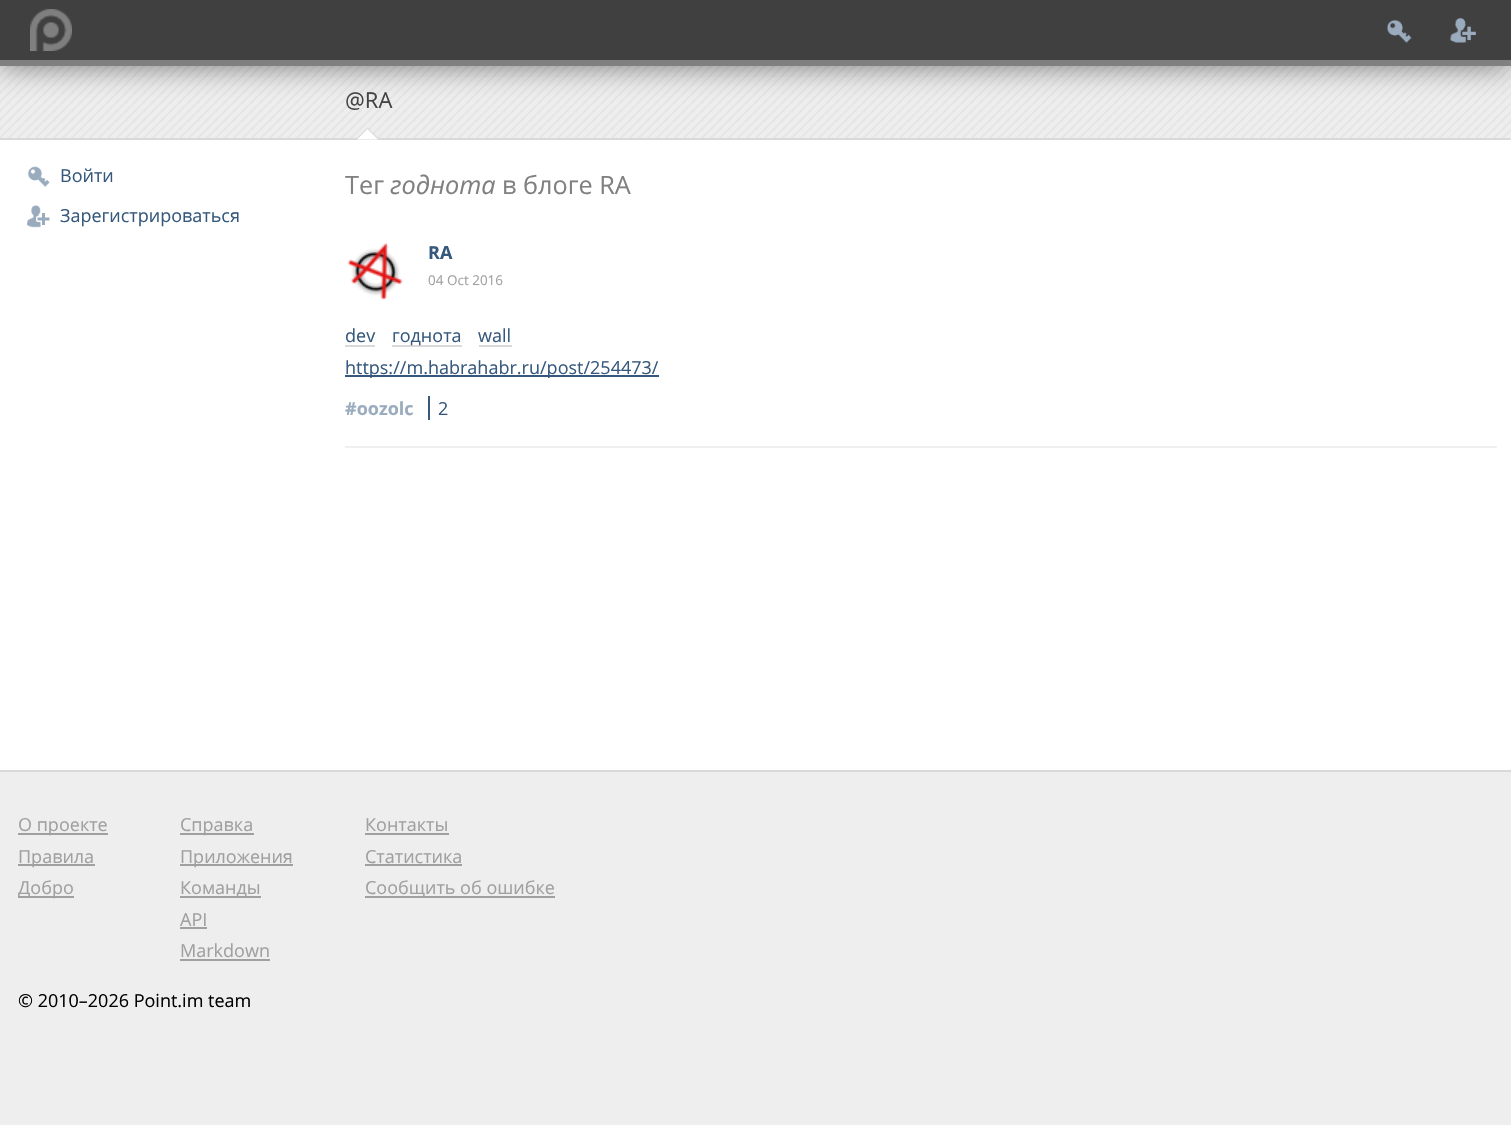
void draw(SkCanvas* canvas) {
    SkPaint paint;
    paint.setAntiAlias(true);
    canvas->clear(0xFFEEEEEE);
    canvas->drawImageRect(SkImages::DeferredFromEncodedData(SkData::MakeFromFileName("img4.png")), SkRect::MakeXYWH(0, 66, 1511, 72), SkSamplingOptions());
    paint.setColor(0x80000000);
    paint.setMaskFilter(SkMaskFilter::MakeBlur(kNormal_SkBlurStyle, 15));
    canvas->drawRect(SkRect::MakeXYWH(0, 0, 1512, 66), paint);
    paint.setMaskFilter(nullptr);
    paint.setColor(0xFF404040);
    canvas->drawRect(SkRect::MakeXYWH(0, 0, 1511, 60), paint);
    paint.setColor(0xFF808080);
    canvas->drawRect(SkRect::MakeXYWH(0, 60, 1511, 6), paint);
    canvas->drawImageRect(SkImages::DeferredFromEncodedData(SkData::MakeFromFileName("img1.png")), SkRect::MakeXYWH(30, 9, 42, 42), SkSamplingOptions());
    canvas->drawImageRect(SkImages::DeferredFromEncodedData(SkData::MakeFromFileName("img2.png")), SkRect::MakeXYWH(1387, 20, 25, 23), SkSamplingOptions());
    canvas->drawImageRect(SkImages::DeferredFromEncodedData(SkData::MakeFromFileName("img3.png")), SkRect::MakeXYWH(1450, 18, 26, 25), SkSamplingOptions());
    paint.setColor(0xFFD9D9D9);
    canvas->drawRect(SkRect::MakeXYWH(0, 138, 1511, 2), paint);
    SkFont font1(fontMgr->matchFamilyStyle("Open Sans", SkFontStyle::Normal()), 22);
    font1.setSubpixel(true);
    paint.setColor(0xFF444444);
    canvas->drawString("@RA", 345, 108, font1, paint);
    paint.setColor(0xFFD9D9D9);
    canvas->drawPath(SkPathBuilder().moveTo(379.5f, 139.5f).lineTo(355.5f, 139.5f).lineTo(367.5f, 127.5f).close().detach(), paint);
    paint.setColor(0xFFFFFFFF);
    canvas->drawPath(SkPathBuilder().moveTo(378, 139.5f).lineTo(357, 139.5f).lineTo(367.5f, 129).close().detach(), paint);
    canvas->drawRect(SkRect::MakeXYWH(0, 140, 1511, 630), paint);
    paint.setColor(0xFFD9D9D9);
    canvas->drawRect(SkRect::MakeXYWH(0, 770, 1511, 2), paint);
    canvas->drawImageRect(SkImages::DeferredFromEncodedData(SkData::MakeFromFileName("img5.png")), SkRect::MakeXYWH(27, 166, 23, 21), SkSamplingOptions());
    SkFont font2(fontMgr->matchFamilyStyle("Open Sans", SkFontStyle::Normal()), 18);
    font2.setSubpixel(true);
    paint.setColor(0xFF35587C);
    canvas->drawString("Войти", 60, 182, font2, paint);
    canvas->drawImageRect(SkImages::DeferredFromEncodedData(SkData::MakeFromFileName("img6.png")), SkRect::MakeXYWH(27, 205, 23, 23), SkSamplingOptions());
    canvas->drawString("Зарегистрироваться", 60, 222, font2, paint);
    SkFont font3(fontMgr->matchFamilyStyle("Open Sans", SkFontStyle::Normal()), 25.25f);
    font3.setSubpixel(true);
    paint.setColor(0xFF808080);
    canvas->drawString("Тег", 345, 194, font3, paint);
    SkFont font4(fontMgr->matchFamilyStyle("Open Sans", SkFontStyle::Italic()), 25.25f);
    font4.setSubpixel(true);
    canvas->drawString("годнота", 390, 194, font4, paint);
    canvas->drawString("в блоге RA", 502, 194, font3, paint);
    paint.setColor(0xFFF0F0F0);
    canvas->drawRect(SkRect::MakeXYWH(345, 446, 1152, 2), paint);
    canvas->drawImageRect(SkImages::DeferredFromEncodedData(SkData::MakeFromFileName("img7.png")), SkRect::MakeXYWH(347, 242, 56, 58), SkSamplingOptions());
    SkFont font5(fontMgr->matchFamilyStyle("Open Sans", SkFontStyle::Bold()), 18);
    font5.setSubpixel(true);
    paint.setColor(0xFF35587C);
    canvas->drawString("RA", 428, 259, font5, paint);
    SkFont font6(fontMgr->matchFamilyStyle("Open Sans", SkFontStyle::Normal()), 13.5f);
    font6.setSubpixel(true);
    paint.setColor(0xFFA0A0A0);
    canvas->drawString("04 Oct 2016", 428, 285, font6, paint);
    paint.setColor(0xFFD9D9D9);
    canvas->drawRect(SkRect::MakeXYWH(345, 345, 30, 2), paint);
    paint.setColor(0xFF35587C);
    canvas->drawString("dev", 345, 342, font2, paint);
    paint.setColor(0xFFD9D9D9);
    canvas->drawRect(SkRect::MakeXYWH(392, 345, 70, 2), paint);
    paint.setColor(0xFF35587C);
    canvas->drawString("годнота", 392, 342, font2, paint);
    paint.setColor(0xFFD9D9D9);
    canvas->drawRect(SkRect::MakeXYWH(479, 345, 33, 2), paint);
    paint.setColor(0xFF35587C);
    canvas->drawString("wall", 478, 342, font2, paint);
    canvas->drawRect(SkRect::MakeXYWH(345, 375, 314, 2), paint);
    canvas->save();
    canvas->clipRect(SkRect::MakeXYWH(345, 356, 1152, 22));
    canvas->drawString("https://m.habrahabr.ru/post/254473/", 345, 374, font2, paint);
    canvas->restore();
    paint.setColor(0xFF9AACBE);
    canvas->drawString("#oozolc", 345, 415, font5, paint);
    paint.setColor(0xFF35587C);
    canvas->drawRect(SkRect::MakeXYWH(428, 396, 2, 24), paint);
    canvas->drawString("2", 438, 415, font2, paint);
    paint.setColor(0xFFA0A0A0);
    canvas->drawRect(SkRect::MakeXYWH(18, 833, 90, 2), paint);
    canvas->drawString("О проекте", 18, 831, font2, paint);
    canvas->drawRect(SkRect::MakeXYWH(18, 864, 77, 2), paint);
    canvas->drawString("Правила", 18, 863, font2, paint);
    canvas->drawRect(SkRect::MakeXYWH(18, 896, 56, 2), paint);
    canvas->drawString("Добро", 18, 894, font2, paint);
    canvas->drawRect(SkRect::MakeXYWH(180, 833, 74, 2), paint);
    canvas->drawString("Справка", 180, 831, font2, paint);
    canvas->drawRect(SkRect::MakeXYWH(180, 864, 113, 2), paint);
    canvas->drawString("Приложения", 180, 863, font2, paint);
    canvas->drawRect(SkRect::MakeXYWH(180, 896, 81, 2), paint);
    canvas->drawString("Команды", 180, 894, font2, paint);
    canvas->drawString("API", 180, 926, font2, paint);
    canvas->drawRect(SkRect::MakeXYWH(180, 927, 27, 2), paint);
    canvas->drawString("Markdown", 180, 957, font2, paint);
    canvas->drawRect(SkRect::MakeXYWH(180, 959, 90, 2), paint);
    canvas->drawString("Контакты", 365, 831, font2, paint);
    canvas->drawRect(SkRect::MakeXYWH(365, 833, 84, 2), paint);
    canvas->drawString("Статистика", 365, 863, font2, paint);
    canvas->drawRect(SkRect::MakeXYWH(365, 864, 97, 2), paint);
    canvas->drawRect(SkRect::MakeXYWH(365, 896, 190, 2), paint);
    canvas->drawString("Сообщить об ошибке", 365, 894, font2, paint);
    paint.setColor(0xFF000000);
    canvas->drawString("© 2010–2026 Point.im team", 18, 1007, font2, paint);
}
